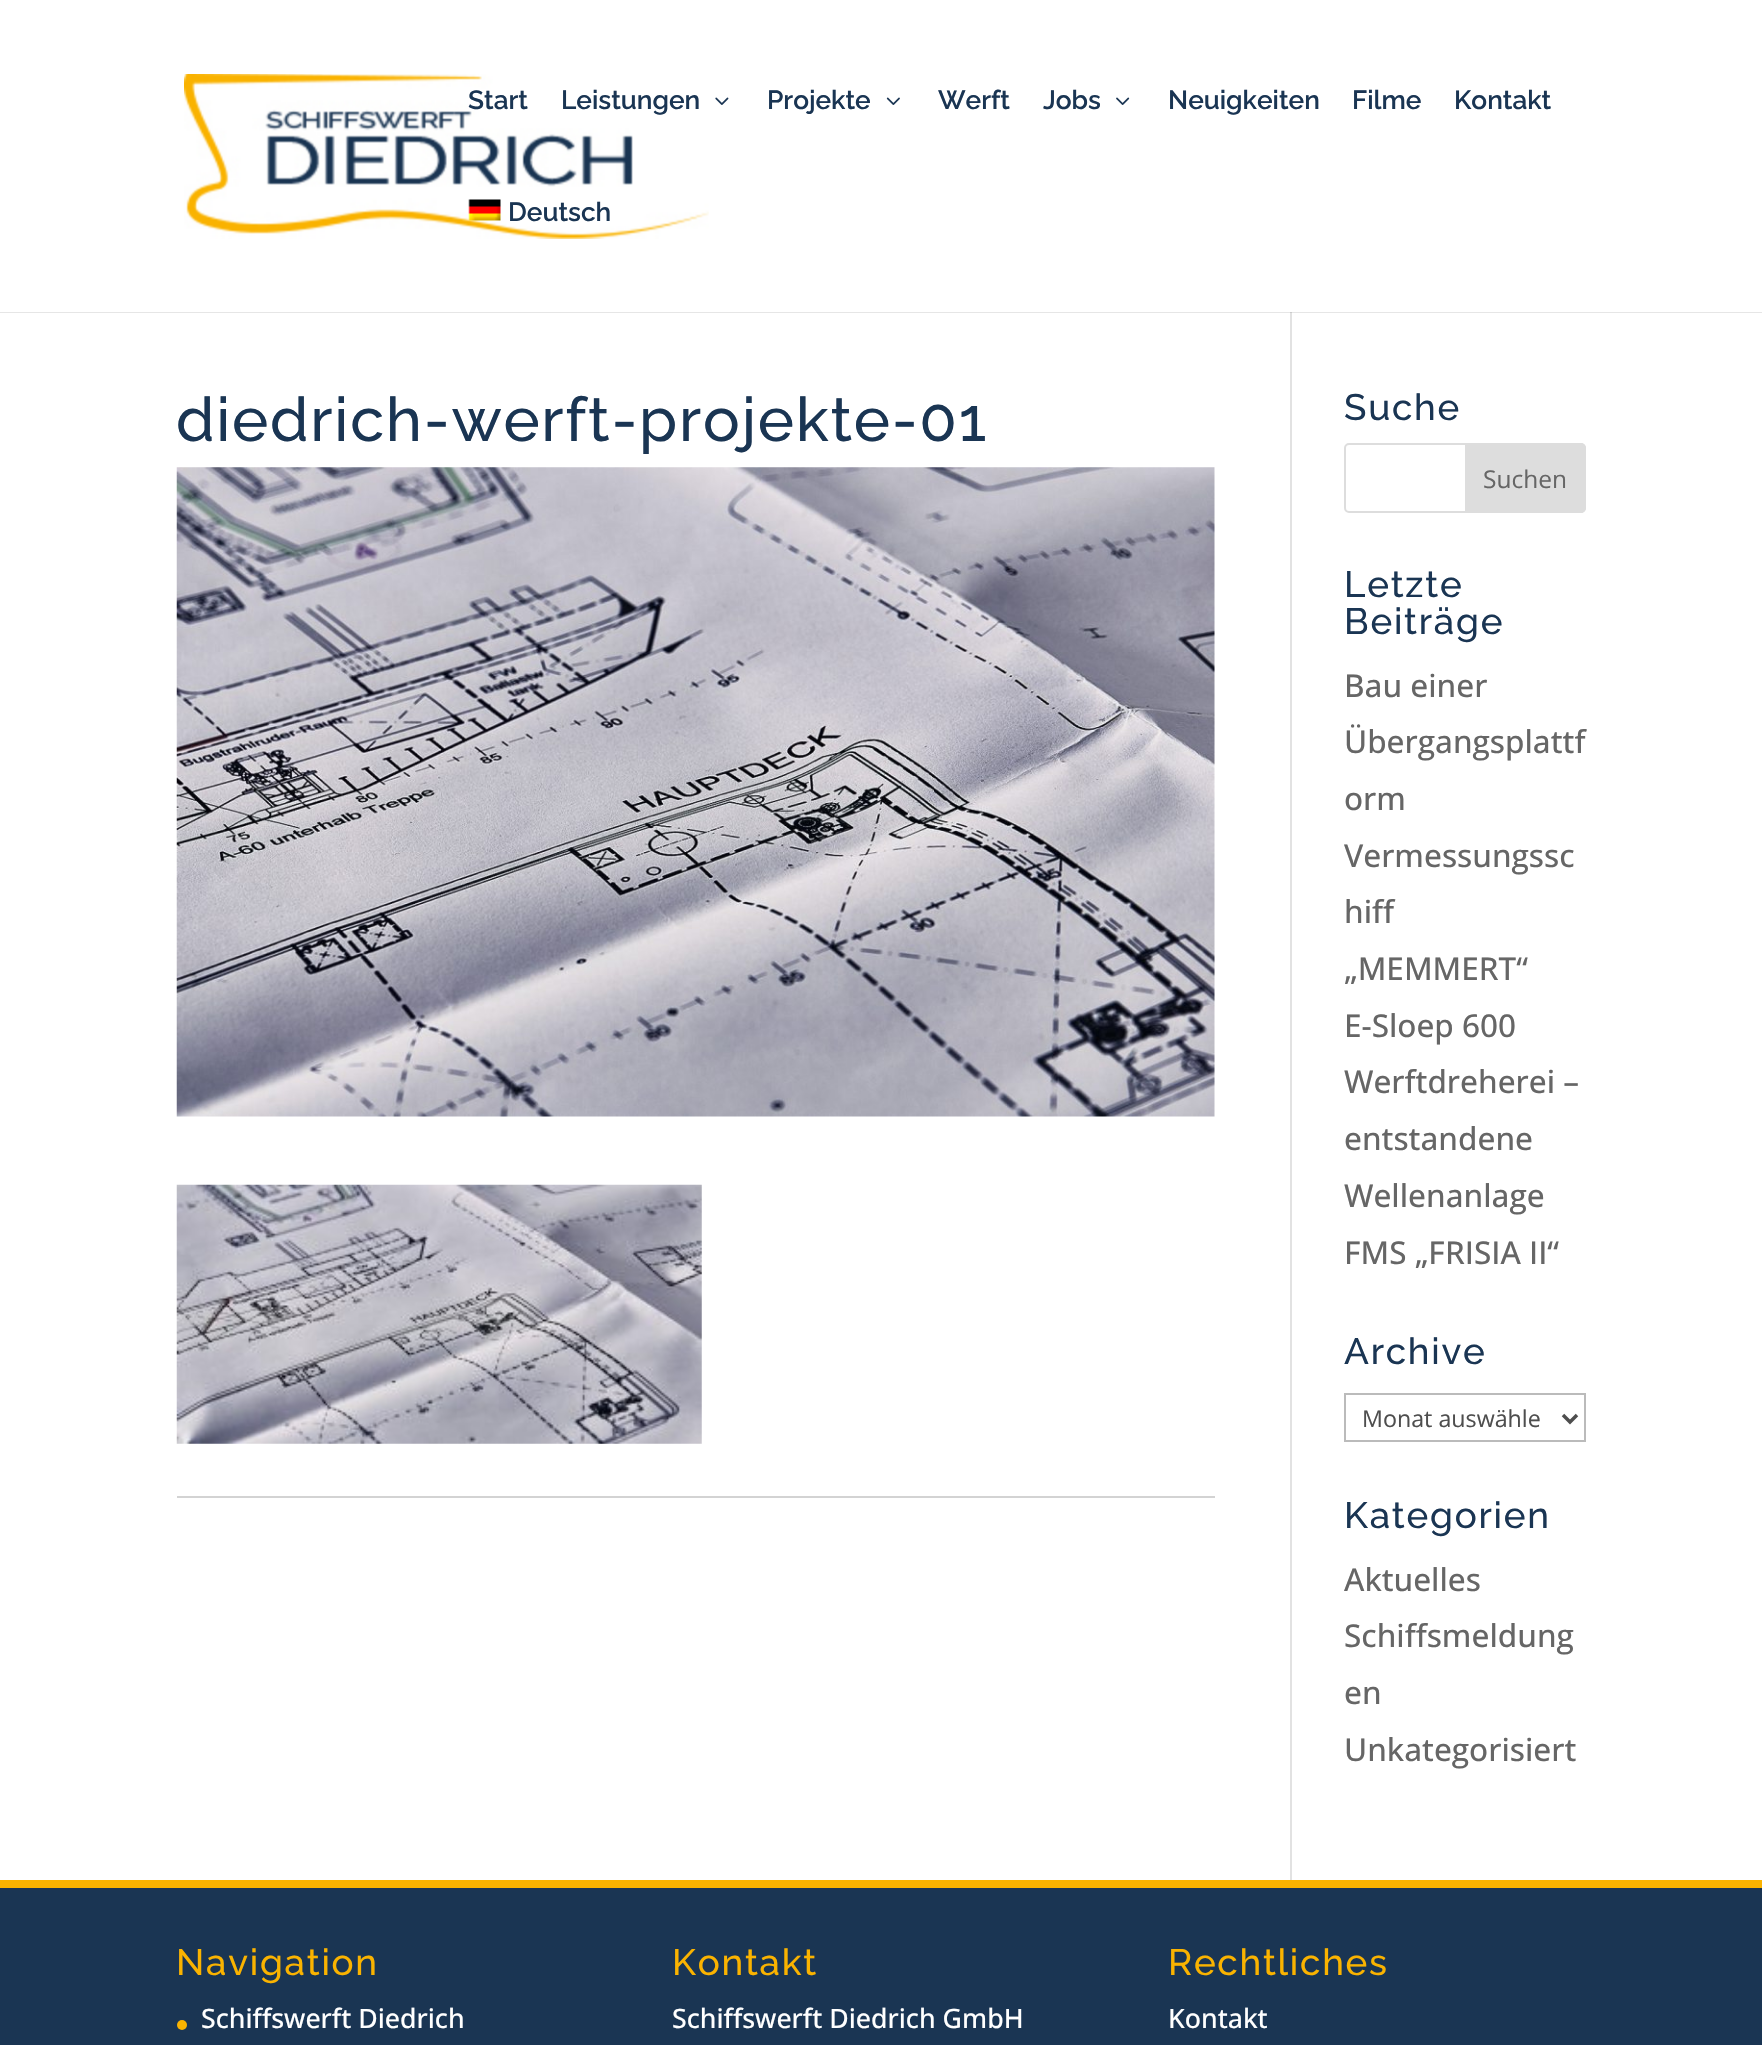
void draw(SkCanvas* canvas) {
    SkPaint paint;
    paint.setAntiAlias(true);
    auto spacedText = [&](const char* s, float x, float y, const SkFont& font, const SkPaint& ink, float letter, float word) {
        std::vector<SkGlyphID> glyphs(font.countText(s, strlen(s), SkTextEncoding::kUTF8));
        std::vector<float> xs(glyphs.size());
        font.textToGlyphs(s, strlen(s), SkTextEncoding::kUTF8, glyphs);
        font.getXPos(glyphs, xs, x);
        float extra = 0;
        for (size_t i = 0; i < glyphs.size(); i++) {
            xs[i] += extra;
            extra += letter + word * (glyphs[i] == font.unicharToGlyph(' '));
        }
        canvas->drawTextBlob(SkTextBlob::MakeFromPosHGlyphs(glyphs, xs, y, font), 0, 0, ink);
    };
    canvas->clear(0xFFFFFFFF);
    paint.setColor(0xFFE6E6E6);
    canvas->drawRect(SkRect::MakeXYWH(0, 312, 1762, 1), paint);
    canvas->drawImageRect(SkImages::DeferredFromEncodedData(SkData::MakeFromFileName("img1.png")), SkRect::MakeXYWH(184, 74, 525, 165), SkSamplingOptions());
    SkFont font1(fontMgr->matchFamilyStyle("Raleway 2", SkFontStyle(100, SkFontStyle::kNormal_Width, SkFontStyle::kUpright_Slant)), 26.25f);
    font1.setSubpixel(true);
    paint.setColor(0xFF1A3553);
    canvas->drawString("Start", 468, 109, font1, paint);
    canvas->drawString("Leistungen", 561, 109, font1, paint);
    canvas->drawImageRect(SkImages::DeferredFromEncodedData(SkData::MakeFromFileName("img2.png")), SkRect::MakeXYWH(715, 97, 14, 8), SkSamplingOptions());
    canvas->drawString("Projekte", 767, 109, font1, paint);
    canvas->drawImageRect(SkImages::DeferredFromEncodedData(SkData::MakeFromFileName("img3.png")), SkRect::MakeXYWH(886, 97, 14, 8), SkSamplingOptions());
    canvas->drawString("Werft", 938, 109, font1, paint);
    canvas->drawString("Jobs", 1043, 109, font1, paint);
    canvas->drawImageRect(SkImages::DeferredFromEncodedData(SkData::MakeFromFileName("img4.png")), SkRect::MakeXYWH(1116, 97, 14, 8), SkSamplingOptions());
    canvas->drawString("Neuigkeiten", 1168, 109, font1, paint);
    canvas->drawString("Filme", 1352, 109, font1, paint);
    canvas->drawString("Kontakt", 1454, 109, font1, paint);
    canvas->drawImageRect(SkImages::DeferredFromEncodedData(SkData::MakeFromFileName("img5.png")), SkRect::MakeXYWH(468, 199, 33, 22), SkSamplingOptions());
    canvas->drawString("Deutsch", 508, 221, font1, paint);
    paint.setColor(0xFFE2E2E2);
    canvas->drawRect(SkRect::MakeXYWH(1290, 313, 2, 1567), paint);
    paint.setColor(0xFFCBCBCB);
    canvas->drawRect(SkRect::MakeXYWH(1290, 312, 2, 1), paint);
    paint.setColor(0xFFD3D3D3);
    canvas->drawRect(SkRect::MakeXYWH(177, 1496, 1038, 2), paint);
    SkFont font2(fontMgr->matchFamilyStyle("Raleway", SkFontStyle(100, SkFontStyle::kNormal_Width, SkFontStyle::kUpright_Slant)), 61.25f);
    font2.setSubpixel(true);
    paint.setColor(0xFF1A3553);
    spacedText("diedrich-werft-projekte-01", 176, 441, font2, paint, 1.75f, 0);
    canvas->drawImageRect(SkImages::DeferredFromEncodedData(SkData::MakeFromFileName("img6.png")), SkRect::MakeXYWH(176, 467, 1039, 650), SkSamplingOptions());
    canvas->drawImageRect(SkImages::DeferredFromEncodedData(SkData::MakeFromFileName("img7.png")), SkRect::MakeXYWH(176, 1184, 526, 260), SkSamplingOptions());
    SkFont font3(fontMgr->matchFamilyStyle("Raleway", SkFontStyle(100, SkFontStyle::kNormal_Width, SkFontStyle::kUpright_Slant)), 36.75f);
    font3.setSubpixel(true);
    spacedText("Suche", 1344, 420, font3, paint, 1.75f, 0);
    paint.setStyle(SkPaint::kStroke_Style);
    paint.setStrokeWidth(2);
    paint.setColor(0xFFDDDDDD);
    canvas->drawRoundRect(SkRect::MakeXYWH(1345, 444, 240, 68), 4, 4, paint);
    paint.setStyle(SkPaint::kFill_Style);
    canvas->drawPath(SkPathBuilder().moveTo(1466, 444).lineTo(1581, 444).cubicTo(1583, 444, 1585, 446, 1585, 448).lineTo(1585, 508).cubicTo(1585, 510, 1583, 512, 1581, 512).lineTo(1466, 512).close().detach(), paint);
    paint.setStyle(SkPaint::kStroke_Style);
    canvas->drawPath(SkPathBuilder().moveTo(1466, 444).lineTo(1581, 444).cubicTo(1583, 444, 1585, 446, 1585, 448).lineTo(1585, 508).cubicTo(1585, 510, 1583, 512, 1581, 512).lineTo(1466, 512).close().detach(), paint);
    SkFont font4(fontMgr->matchFamilyStyle("Open Sans", SkFontStyle::Normal()), 24.5f);
    font4.setSubpixel(true);
    paint.setStyle(SkPaint::kFill_Style);
    paint.setColor(0xFF666666);
    canvas->drawString("Suchen", 1483, 488, font4, paint);
    paint.setColor(0xFF1A3553);
    spacedText("Letzte", 1344, 597, font3, paint, 1.75f, 0);
    spacedText("Beiträge", 1344, 634, font3, paint, 1.75f, 0);
    SkFont font5(fontMgr->matchFamilyStyle("Open Sans", SkFontStyle(500, SkFontStyle::kNormal_Width, SkFontStyle::kUpright_Slant)), 31.5f);
    font5.setSubpixel(true);
    paint.setColor(0xFF666666);
    canvas->drawString("Bau einer", 1344, 697, font5, paint);
    canvas->drawString("Übergangsplattf", 1344, 753, font5, paint);
    canvas->drawString("orm", 1344, 810, font5, paint);
    canvas->drawString("Vermessungssc", 1344, 867, font5, paint);
    canvas->drawString("hiff", 1344, 923, font5, paint);
    canvas->drawString("„MEMMERT“", 1344, 980, font5, paint);
    canvas->drawString("E-Sloep 600", 1344, 1037, font5, paint);
    canvas->drawString("Werftdreherei –", 1344, 1093, font5, paint);
    canvas->drawString("entstandene", 1344, 1150, font5, paint);
    canvas->drawString("Wellenanlage", 1344, 1207, font5, paint);
    canvas->drawString("FMS „FRISIA II“", 1344, 1264, font5, paint);
    paint.setColor(0xFF1A3553);
    spacedText("Archive", 1344, 1364, font3, paint, 1.75f, 0);
    paint.setStyle(SkPaint::kStroke_Style);
    paint.setColor(0xFFBBBBBB);
    canvas->drawRect(SkRect::MakeXYWH(1345, 1394, 240, 47), paint);
    paint.setStrokeWidth(3.5f);
    paint.setColor(0xFF4E4E4E);
    canvas->drawPath(SkPathBuilder().moveTo(1563, 1415).lineTo(1570, 1422).lineTo(1577, 1415).detach(), paint);
    SkFont font6(fontMgr->matchFamilyStyle("Open Sans", SkFontStyle::Normal()), 23.25f);
    font6.setSubpixel(true);
    paint.setStyle(SkPaint::kFill_Style);
    canvas->drawString("Monat auswähle", 1362, 1427, font6, paint);
    paint.setColor(0xFF1A3553);
    spacedText("Kategorien", 1344, 1528, font3, paint, 1.75f, 0);
    paint.setColor(0xFF666666);
    canvas->drawString("Aktuelles", 1344, 1591, font5, paint);
    canvas->drawString("Schiffsmeldung", 1344, 1647, font5, paint);
    canvas->drawString("en", 1344, 1704, font5, paint);
    canvas->drawString("Unkategorisiert", 1344, 1761, font5, paint);
    paint.setColor(0xFF1A3553);
    canvas->drawRect(SkRect::MakeXYWH(0, 1888, 1762, 157), paint);
    paint.setColor(0xFFFAB300);
    canvas->drawRect(SkRect::MakeXYWH(0, 1880, 1762, 8), paint);
    spacedText("Navigation", 176, 1975, font3, paint, 1.75f, 0);
    canvas->drawCircle(182, 2025, 5, paint);
    SkFont font7(fontMgr->matchFamilyStyle("Open Sans", SkFontStyle(500, SkFontStyle::kNormal_Width, SkFontStyle::kUpright_Slant)), 26.75f);
    font7.setSubpixel(true);
    paint.setColor(0xFFFFFFFF);
    canvas->drawString("Schiffswerft Diedrich", 201, 2028, font7, paint);
    paint.setColor(0xFFFAB300);
    spacedText("Kontakt", 672, 1975, font3, paint, 1.75f, 0);
    paint.setColor(0xFFFFFFFF);
    canvas->drawString("Schiffswerft Diedrich GmbH", 672, 2028, font7, paint);
    paint.setColor(0xFFFAB300);
    spacedText("Rechtliches", 1168, 1975, font3, paint, 1.75f, 0);
    paint.setColor(0xFFFFFFFF);
    canvas->drawString("Kontakt", 1168, 2028, font7, paint);
}
